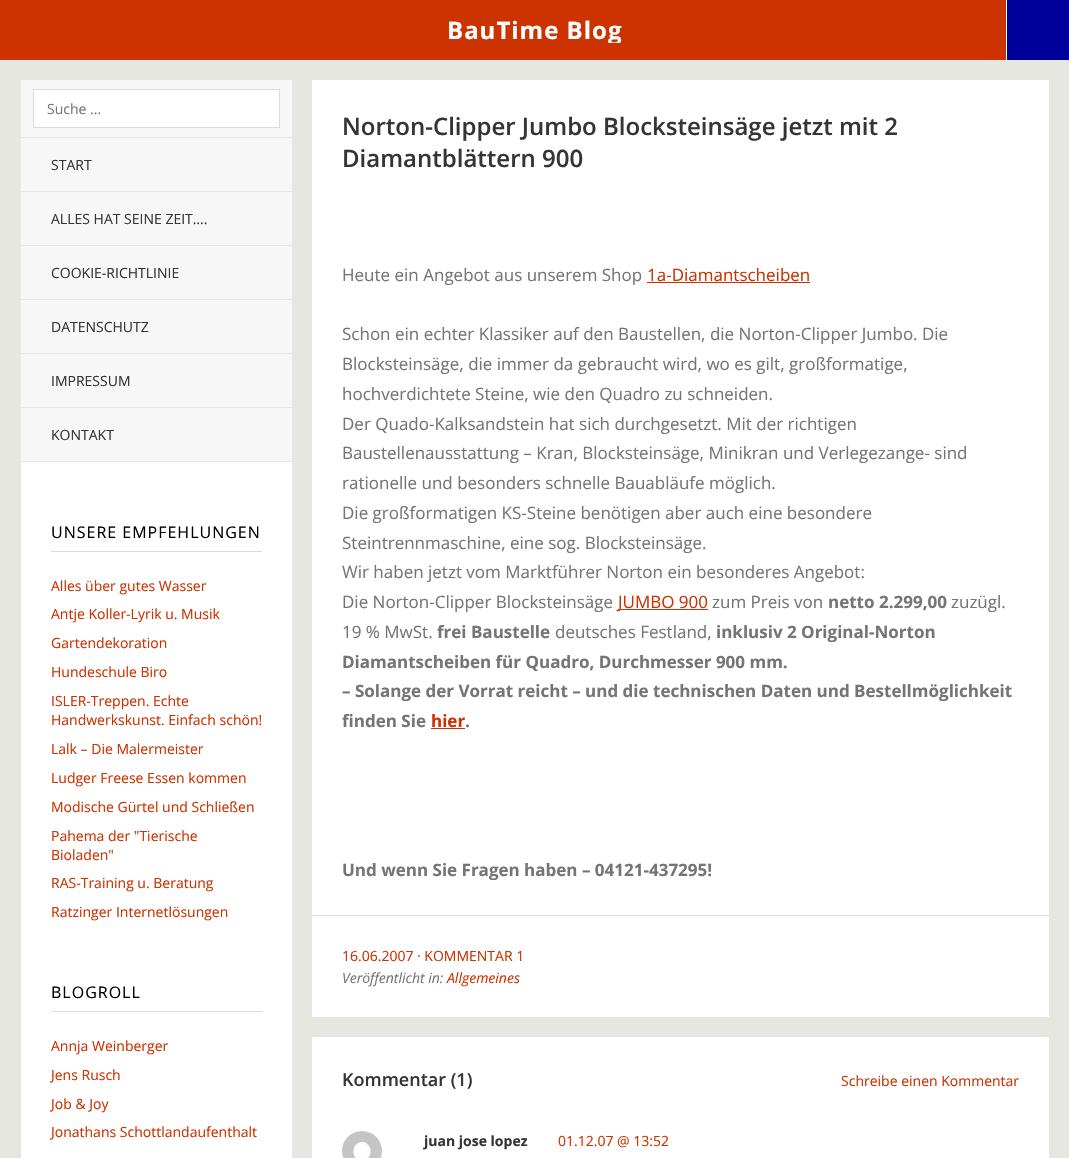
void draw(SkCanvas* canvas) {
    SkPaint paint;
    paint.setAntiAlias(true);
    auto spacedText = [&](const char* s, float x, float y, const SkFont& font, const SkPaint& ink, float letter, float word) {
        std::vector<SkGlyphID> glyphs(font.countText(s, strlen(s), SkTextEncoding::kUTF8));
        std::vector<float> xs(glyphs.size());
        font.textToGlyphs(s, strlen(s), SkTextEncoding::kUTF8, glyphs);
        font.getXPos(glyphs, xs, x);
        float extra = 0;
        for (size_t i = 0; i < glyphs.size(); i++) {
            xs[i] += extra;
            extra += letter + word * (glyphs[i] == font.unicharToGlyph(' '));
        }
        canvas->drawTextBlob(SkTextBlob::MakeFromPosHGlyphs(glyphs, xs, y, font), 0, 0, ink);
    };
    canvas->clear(0xFFE7E7E2);
    paint.setColor(0xFFCC3300);
    canvas->drawRect(SkRect::MakeXYWH(0, 0, 1006, 60), paint);
    canvas->save();
    canvas->clipRect(SkRect::MakeXYWH(63, 0, 943, 43));
    SkFont font1(fontMgr->matchFamilyStyle("Open Sans", SkFontStyle::Bold()), 24);
    font1.setSubpixel(true);
    paint.setColor(0xFFFFFFFF);
    spacedText("BauTime Blog", 447, 39, font1, paint, 1, 0);
    canvas->restore();
    paint.setColor(0xFF00009A);
    canvas->drawRect(SkRect::MakeXYWH(1007, 0, 62, 60), paint);
    paint.setColor(0xFFFFFFFF);
    canvas->drawRect(SkRect::MakeXYWH(1006, 0, 1, 60), paint);
    canvas->drawRect(SkRect::MakeXYWH(21, 462, 271, 696), paint);
    paint.setColor(0xFFF7F7F7);
    canvas->drawRect(SkRect::MakeXYWH(21, 80, 271, 381), paint);
    paint.setColor(0xFFE6E6E6);
    canvas->drawRect(SkRect::MakeXYWH(21, 137, 271, 1), paint);
    paint.setColor(0xFFFFFFFF);
    canvas->drawRect(SkRect::MakeXYWH(33.5f, 89.5f, 246, 38), paint);
    paint.setStyle(SkPaint::kStroke_Style);
    paint.setStrokeWidth(1);
    paint.setColor(0xFFDCDCDC);
    canvas->drawRect(SkRect::MakeXYWH(33.5f, 89.5f, 246, 38), paint);
    SkFont font2(fontMgr->matchFamilyStyle("Open Sans", SkFontStyle::Normal()), 14);
    font2.setSubpixel(true);
    paint.setStyle(SkPaint::kFill_Style);
    paint.setColor(0xFF757575);
    canvas->drawString("Suche ...", 47, 114, font2, paint);
    paint.setColor(0xFFE6E6E6);
    canvas->drawRect(SkRect::MakeXYWH(21, 191, 271, 1), paint);
    paint.setColor(0xFF333538);
    canvas->drawString("START", 51, 170, font2, paint);
    paint.setColor(0xFFE6E6E6);
    canvas->drawRect(SkRect::MakeXYWH(21, 245, 271, 1), paint);
    paint.setColor(0xFF333538);
    canvas->drawString("ALLES HAT SEINE ZEIT….", 51, 224, font2, paint);
    paint.setColor(0xFFE6E6E6);
    canvas->drawRect(SkRect::MakeXYWH(21, 299, 271, 1), paint);
    paint.setColor(0xFF333538);
    canvas->drawString("COOKIE-RICHTLINIE", 51, 278, font2, paint);
    paint.setColor(0xFFE6E6E6);
    canvas->drawRect(SkRect::MakeXYWH(21, 353, 271, 1), paint);
    paint.setColor(0xFF333538);
    canvas->drawString("DATENSCHUTZ", 51, 332, font2, paint);
    paint.setColor(0xFFE6E6E6);
    canvas->drawRect(SkRect::MakeXYWH(21, 407, 271, 1), paint);
    paint.setColor(0xFF333538);
    canvas->drawString("IMPRESSUM", 51, 386, font2, paint);
    paint.setColor(0xFFE6E6E6);
    canvas->drawRect(SkRect::MakeXYWH(21, 461, 271, 1), paint);
    paint.setColor(0xFF333538);
    canvas->drawString("KONTAKT", 51, 440, font2, paint);
    paint.setColor(0xFFDCDCDC);
    canvas->drawRect(SkRect::MakeXYWH(51, 551, 211, 1), paint);
    SkFont font3(fontMgr->matchFamilyStyle("Open Sans", SkFontStyle::Normal()), 16);
    font3.setSubpixel(true);
    paint.setColor(0xFF000000);
    spacedText("UNSERE EMPFEHLUNGEN", 51, 538, font3, paint, 1, 0);
    paint.setColor(0xFFCC3300);
    canvas->drawString("Alles über gutes Wasser", 51, 591, font2, paint);
    canvas->drawString("Antje Koller-Lyrik u. Musik", 51, 619, font2, paint);
    canvas->drawString("Gartendekoration", 51, 648, font2, paint);
    canvas->drawString("Hundeschule Biro", 51, 677, font2, paint);
    canvas->drawString("ISLER-Treppen. Echte", 51, 706, font2, paint);
    canvas->drawString("Handwerkskunst. Einfach schön!", 51, 725, font2, paint);
    canvas->drawString("Lalk – Die Malermeister", 51, 754, font2, paint);
    canvas->drawString("Ludger Freese Essen kommen", 51, 783, font2, paint);
    canvas->drawString("Modische Gürtel und Schließen", 51, 812, font2, paint);
    canvas->drawString("Pahema der \"Tierische", 51, 841, font2, paint);
    canvas->drawString("Bioladen\"", 51, 860, font2, paint);
    canvas->drawString("RAS-Training u. Beratung", 51, 888, font2, paint);
    canvas->drawString("Ratzinger Internetlösungen", 51, 917, font2, paint);
    paint.setColor(0xFFDCDCDC);
    canvas->drawRect(SkRect::MakeXYWH(51, 1011, 211, 1), paint);
    paint.setColor(0xFF000000);
    spacedText("BLOGROLL", 51, 998, font3, paint, 1, 0);
    paint.setColor(0xFFCC3300);
    canvas->drawString("Annja Weinberger", 51, 1051, font2, paint);
    canvas->drawString("Jens Rusch", 51, 1080, font2, paint);
    canvas->drawString("Job & Joy", 51, 1109, font2, paint);
    canvas->drawString("Jonathans Schottlandaufenthalt", 51, 1137, font2, paint);
    paint.setColor(0xFFFFFFFF);
    canvas->drawRect(SkRect::MakeXYWH(312, 80, 737, 937), paint);
    SkFont font4(fontMgr->matchFamilyStyle("Open Sans", SkFontStyle(600, SkFontStyle::kNormal_Width, SkFontStyle::kUpright_Slant)), 24);
    font4.setSubpixel(true);
    paint.setColor(0xFF333538);
    canvas->drawString("Norton-Clipper Jumbo Blocksteinsäge jetzt mit 2", 342, 135, font4, paint);
    canvas->drawString("Diamantblättern 900", 342, 167, font4, paint);
    SkFont font5(fontMgr->matchFamilyStyle("Open Sans", SkFontStyle::Normal()), 17);
    font5.setSubpixel(true);
    paint.setColor(0xFF757575);
    canvas->drawString("Heute ein Angebot aus unserem Shop", 342, 281, font5, paint);
    paint.setColor(0xFFCC3300);
    canvas->drawString("1a-Diamantscheiben", 647, 281, font5, paint);
    canvas->drawRect(SkRect::MakeXYWH(647, 282, 163, 1), paint);
    paint.setColor(0xFF757575);
    canvas->drawString("Schon ein echter Klassiker auf den Baustellen, die Norton-Clipper Jumbo. Die", 342, 340, font5, paint);
    canvas->drawString("Blocksteinsäge, die immer da gebraucht wird, wo es gilt, großformatige,", 342, 370, font5, paint);
    canvas->drawString("hochverdichtete Steine, wie den Quadro zu schneiden.", 342, 400, font5, paint);
    canvas->drawString("Der Quado-Kalksandstein hat sich durchgesetzt. Mit der richtigen", 342, 430, font5, paint);
    canvas->drawString("Baustellenausstattung – Kran, Blocksteinsäge, Minikran und Verlegezange- sind", 342, 459, font5, paint);
    canvas->drawString("rationelle und besonders schnelle Bauabläufe möglich.", 342, 489, font5, paint);
    canvas->drawString("Die großformatigen KS-Steine benötigen aber auch eine besondere", 342, 519, font5, paint);
    canvas->drawString("Steintrennmaschine, eine sog. Blocksteinsäge.", 342, 549, font5, paint);
    canvas->drawString("Wir haben jetzt vom Marktführer Norton ein besonderes Angebot:", 342, 578, font5, paint);
    canvas->drawString("Die Norton-Clipper Blocksteinsäge", 342, 608, font5, paint);
    paint.setColor(0xFFCC3300);
    canvas->drawRect(SkRect::MakeXYWH(618, 609, 90, 1), paint);
    canvas->drawString("JUMBO 900", 618, 608, font5, paint);
    paint.setColor(0xFF757575);
    canvas->drawString("zum Preis von", 712, 608, font5, paint);
    SkFont font6(fontMgr->matchFamilyStyle("Open Sans", SkFontStyle::Bold()), 17);
    font6.setSubpixel(true);
    canvas->drawString("netto 2.299,00", 828, 608, font6, paint);
    canvas->drawString("zuzügl.", 951, 608, font5, paint);
    canvas->drawString("19 % MwSt.", 342, 638, font5, paint);
    canvas->drawString("frei Baustelle", 437, 638, font6, paint);
    canvas->drawString("deutsches Festland,", 555, 638, font5, paint);
    canvas->drawString("inklusiv 2 Original-Norton", 716, 638, font6, paint);
    canvas->drawString("Diamantscheiben für Quadro, Durchmesser 900 mm.", 342, 668, font6, paint);
    canvas->drawString("– Solange der Vorrat reicht – und die technischen Daten und Bestellmöglichkeit", 342, 697, font6, paint);
    canvas->drawString("finden Sie", 342, 727, font6, paint);
    paint.setColor(0xFFCC3300);
    canvas->drawString("hier", 431, 727, font6, paint);
    paint.setColor(0xFF757575);
    canvas->drawString(".", 465, 727, font6, paint);
    paint.setColor(0xFFCC3300);
    canvas->drawRect(SkRect::MakeXYWH(431, 728, 34, 1), paint);
    paint.setColor(0xFF757575);
    canvas->drawString("Und wenn Sie Fragen haben – 04121-437295!", 342, 876, font6, paint);
    paint.setColor(0xFFDCDCDC);
    canvas->drawRect(SkRect::MakeXYWH(312, 915, 737, 1), paint);
    paint.setColor(0xFFCC3300);
    canvas->drawString("16.06.2007 · KOMMENTAR 1", 342, 961, font2, paint);
    SkFont font7(fontMgr->matchFamilyStyle("Open Sans", SkFontStyle::Italic()), 14);
    font7.setSubpixel(true);
    paint.setColor(0xFF757575);
    canvas->drawString("Veröffentlicht in:", 342, 983, font7, paint);
    paint.setColor(0xFFCC3300);
    canvas->drawString("Allgemeines", 447, 983, font7, paint);
    paint.setColor(0xFFFFFFFF);
    canvas->drawRect(SkRect::MakeXYWH(312, 1037, 737, 121), paint);
    SkFont font8(fontMgr->matchFamilyStyle("Open Sans", SkFontStyle(600, SkFontStyle::kNormal_Width, SkFontStyle::kUpright_Slant)), 18);
    font8.setSubpixel(true);
    paint.setColor(0xFF333538);
    canvas->drawString("Kommentar (1)", 342, 1086, font8, paint);
    paint.setColor(0xFFCC3300);
    canvas->drawString("Schreibe einen Kommentar", 841, 1086, font2, paint);
    canvas->drawImageRect(SkImages::DeferredFromEncodedData(SkData::MakeFromFileName("img1.png")), SkRect::MakeXYWH(342, 1131, 40, 27), SkSamplingOptions());
    SkFont font9(fontMgr->matchFamilyStyle("Open Sans", SkFontStyle::Bold()), 14);
    font9.setSubpixel(true);
    paint.setColor(0xFF333538);
    canvas->drawString("juan jose lopez", 424, 1146, font9, paint);
    paint.setColor(0xFFCC3300);
    canvas->drawString("01.12.07 @ 13:52", 558, 1146, font2, paint);
}
